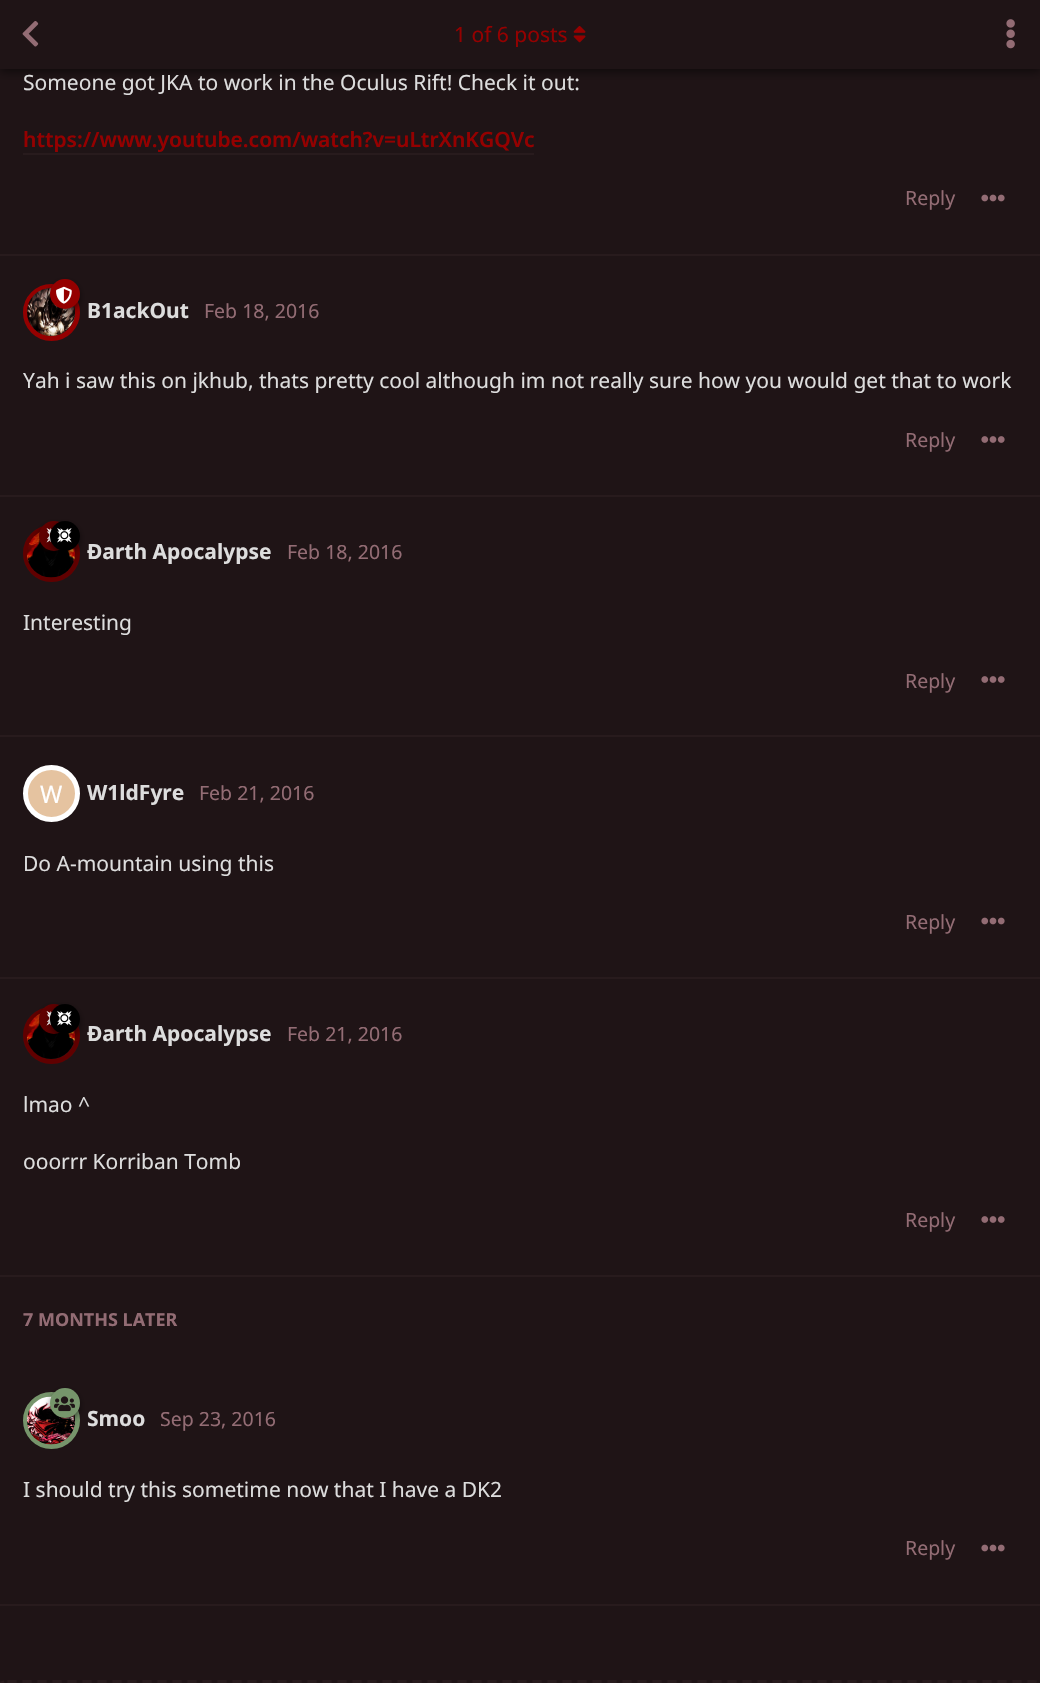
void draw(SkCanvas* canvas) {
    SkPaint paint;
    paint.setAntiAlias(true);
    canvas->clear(0xFF1F1416);
    paint.setColor(0x80000000);
    paint.setMaskFilter(SkMaskFilter::MakeBlur(kNormal_SkBlurStyle, 4.5f));
    canvas->drawRect(SkRect::MakeXYWH(0, 3, 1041, 69), paint);
    paint.setMaskFilter(nullptr);
    paint.setColor(0xFF1F1416);
    canvas->drawRect(SkRect::MakeXYWH(0, 0, 1040, 69), paint);
    canvas->drawImageRect(SkImages::DeferredFromEncodedData(SkData::MakeFromFileName("img1.png")), SkRect::MakeXYWH(22, 21, 17, 26), SkSamplingOptions());
    SkFont font1(fontMgr->matchFamilyStyle("Noto Sans", SkFontStyle::Normal()), 21);
    font1.setSubpixel(true);
    paint.setColor(0xFF950000);
    canvas->drawString("1 of 6 posts", 454, 42, font1, paint);
    canvas->drawImageRect(SkImages::DeferredFromEncodedData(SkData::MakeFromFileName("img2.png")), SkRect::MakeXYWH(573, 26, 13, 17), SkSamplingOptions());
    canvas->drawImageRect(SkImages::DeferredFromEncodedData(SkData::MakeFromFileName("img3.png")), SkRect::MakeXYWH(1006, 19, 9, 30), SkSamplingOptions());
    paint.setColor(0xFF281B1D);
    canvas->drawRect(SkRect::MakeXYWH(0, 254, 1040, 2), paint);
    paint.setColor(0xFFDDDDDD);
    canvas->drawString("Someone got JKA to work in the Oculus Rift! Check it out:", 23, 90, font1, paint);
    SkFont font2(fontMgr->matchFamilyStyle("Noto Sans", SkFontStyle(600, SkFontStyle::kNormal_Width, SkFontStyle::kUpright_Slant)), 21);
    font2.setSubpixel(true);
    paint.setColor(0xFF950000);
    canvas->drawString("https://www.youtube.com/watch?v=uLtrXnKGQVc", 23, 147, font2, paint);
    paint.setColor(0xFF281B1D);
    canvas->drawRect(SkRect::MakeXYWH(23, 153, 511, 2), paint);
    SkFont font3(fontMgr->matchFamilyStyle("Noto Sans", SkFontStyle::Normal()), 19.5f);
    font3.setSubpixel(true);
    paint.setColor(0xFF936C74);
    canvas->drawString("Reply", 905, 205, font3, paint);
    canvas->drawImageRect(SkImages::DeferredFromEncodedData(SkData::MakeFromFileName("img4.png")), SkRect::MakeXYWH(981, 194, 24, 8), SkSamplingOptions());
    paint.setColor(0xFF281B1D);
    canvas->drawRect(SkRect::MakeXYWH(0, 495, 1040, 2), paint);
    canvas->drawCircle(51.5f, 312.5f, 26, paint);
    paint.setStyle(SkPaint::kStroke_Style);
    paint.setStrokeWidth(5);
    paint.setColor(0xFF950000);
    canvas->drawCircle(51.5f, 312.5f, 26, paint);
    canvas->drawImageRect(SkImages::DeferredFromEncodedData(SkData::MakeFromFileName("img6.png")), SkRect::MakeXYWH(27, 288, 48, 48), SkSamplingOptions());
    paint.setStyle(SkPaint::kFill_Style);
    paint.setColor(0x80000000);
    paint.setMaskFilter(SkMaskFilter::MakeBlur(kNormal_SkBlurStyle, 3));
    canvas->drawRoundRect(SkRect::MakeXYWH(50, 282, 30, 30), 15, 15, paint);
    paint.setMaskFilter(nullptr);
    paint.setColor(0xFF950000);
    canvas->drawCircle(65, 294, 15, paint);
    canvas->drawImageRect(SkImages::DeferredFromEncodedData(SkData::MakeFromFileName("img5.png")), SkRect::MakeXYWH(56, 286, 16, 18), SkSamplingOptions());
    SkFont font4(fontMgr->matchFamilyStyle("Noto Sans", SkFontStyle::Bold()), 21);
    font4.setSubpixel(true);
    paint.setColor(0xFFDDDDDD);
    canvas->drawString("B1ackOut", 87, 318, font4, paint);
    paint.setColor(0xFF936C74);
    canvas->drawString("Feb 18, 2016", 204, 318, font3, paint);
    paint.setColor(0xFFDDDDDD);
    canvas->drawString("Yah i saw this on jkhub, thats pretty cool although im not really sure how you would get that to work", 23, 388, font1, paint);
    paint.setColor(0xFF936C74);
    canvas->drawString("Reply", 905, 447, font3, paint);
    canvas->drawImageRect(SkImages::DeferredFromEncodedData(SkData::MakeFromFileName("img7.png")), SkRect::MakeXYWH(981, 436, 24, 7), SkSamplingOptions());
    paint.setColor(0xFF281B1D);
    canvas->drawRect(SkRect::MakeXYWH(0, 735, 1040, 2), paint);
    paint.setStyle(SkPaint::kStroke_Style);
    paint.setColor(0xFF600000);
    canvas->drawCircle(51.5f, 553.5f, 26, paint);
    canvas->drawImageRect(SkImages::DeferredFromEncodedData(SkData::MakeFromFileName("img10.png")), SkRect::MakeXYWH(27, 532, 48, 46), SkSamplingOptions());
    paint.setStyle(SkPaint::kFill_Style);
    paint.setColor(0x80000000);
    paint.setMaskFilter(SkMaskFilter::MakeBlur(kNormal_SkBlurStyle, 3));
    canvas->drawRoundRect(SkRect::MakeXYWH(39, 524, 30, 30), 15, 15, paint);
    paint.setMaskFilter(nullptr);
    paint.setColor(0xFF600000);
    canvas->drawCircle(54, 536, 15, paint);
    canvas->drawImageRect(SkImages::DeferredFromEncodedData(SkData::MakeFromFileName("img8.png")), SkRect::MakeXYWH(46, 528, 6, 15), SkSamplingOptions());
    paint.setColor(0x80000000);
    paint.setMaskFilter(SkMaskFilter::MakeBlur(kNormal_SkBlurStyle, 3));
    canvas->drawRoundRect(SkRect::MakeXYWH(50, 524, 30, 30), 15, 15, paint);
    paint.setMaskFilter(nullptr);
    paint.setColor(0xFF000000);
    canvas->drawCircle(65, 536, 15, paint);
    canvas->drawImageRect(SkImages::DeferredFromEncodedData(SkData::MakeFromFileName("img9.png")), SkRect::MakeXYWH(57, 528, 15, 15), SkSamplingOptions());
    paint.setColor(0xFFDDDDDD);
    canvas->drawString("Ðarth Apocalypse", 87, 559, font4, paint);
    paint.setColor(0xFF936C74);
    canvas->drawString("Feb 18, 2016", 287, 559, font3, paint);
    paint.setColor(0xFFDDDDDD);
    canvas->drawString("Interesting", 23, 630, font1, paint);
    paint.setColor(0xFF936C74);
    canvas->drawString("Reply", 905, 688, font3, paint);
    canvas->drawImageRect(SkImages::DeferredFromEncodedData(SkData::MakeFromFileName("img7.png")), SkRect::MakeXYWH(981, 676, 24, 7), SkSamplingOptions());
    paint.setColor(0xFF281B1D);
    canvas->drawRect(SkRect::MakeXYWH(0, 977, 1040, 2), paint);
    paint.setColor(0xFFE5C3A0);
    canvas->drawCircle(51.5f, 793.5f, 26, paint);
    paint.setStyle(SkPaint::kStroke_Style);
    paint.setColor(0xFFFFFFFF);
    canvas->drawCircle(51.5f, 793.5f, 26, paint);
    SkFont font5(fontMgr->matchFamilyStyle("Noto Sans", SkFontStyle::Normal()), 24);
    font5.setSubpixel(true);
    paint.setStyle(SkPaint::kFill_Style);
    canvas->drawString("W", 40, 803, font5, paint);
    paint.setColor(0xFFDDDDDD);
    canvas->drawString("W1ldFyre", 87, 800, font4, paint);
    paint.setColor(0xFF936C74);
    canvas->drawString("Feb 21, 2016", 199, 800, font3, paint);
    paint.setColor(0xFFDDDDDD);
    canvas->drawString("Do A-mountain using this", 23, 871, font1, paint);
    paint.setColor(0xFF936C74);
    canvas->drawString("Reply", 905, 929, font3, paint);
    canvas->drawImageRect(SkImages::DeferredFromEncodedData(SkData::MakeFromFileName("img4.png")), SkRect::MakeXYWH(981, 917, 24, 8), SkSamplingOptions());
    paint.setColor(0xFF281B1D);
    canvas->drawRect(SkRect::MakeXYWH(0, 1275, 1040, 2), paint);
    canvas->drawCircle(51.5f, 1035.5f, 26, paint);
    paint.setStyle(SkPaint::kStroke_Style);
    paint.setColor(0xFF600000);
    canvas->drawCircle(51.5f, 1035.5f, 26, paint);
    canvas->drawImageRect(SkImages::DeferredFromEncodedData(SkData::MakeFromFileName("img11.png")), SkRect::MakeXYWH(27, 1013, 48, 46), SkSamplingOptions());
    paint.setStyle(SkPaint::kFill_Style);
    paint.setColor(0x80000000);
    paint.setMaskFilter(SkMaskFilter::MakeBlur(kNormal_SkBlurStyle, 3));
    canvas->drawRoundRect(SkRect::MakeXYWH(39, 1007, 30, 30), 15, 15, paint);
    paint.setMaskFilter(nullptr);
    paint.setColor(0xFF600000);
    canvas->drawCircle(54, 1019, 15, paint);
    canvas->drawImageRect(SkImages::DeferredFromEncodedData(SkData::MakeFromFileName("img8.png")), SkRect::MakeXYWH(46, 1011, 6, 15), SkSamplingOptions());
    paint.setColor(0x80000000);
    paint.setMaskFilter(SkMaskFilter::MakeBlur(kNormal_SkBlurStyle, 3));
    canvas->drawRoundRect(SkRect::MakeXYWH(50, 1007, 30, 30), 15, 15, paint);
    paint.setMaskFilter(nullptr);
    paint.setColor(0xFF000000);
    canvas->drawCircle(65, 1019, 15, paint);
    canvas->drawImageRect(SkImages::DeferredFromEncodedData(SkData::MakeFromFileName("img9.png")), SkRect::MakeXYWH(57, 1011, 15, 15), SkSamplingOptions());
    paint.setColor(0xFFDDDDDD);
    canvas->drawString("Ðarth Apocalypse", 87, 1041, font4, paint);
    paint.setColor(0xFF936C74);
    canvas->drawString("Feb 21, 2016", 287, 1041, font3, paint);
    paint.setColor(0xFFDDDDDD);
    canvas->drawString("lmao ^", 23, 1112, font1, paint);
    canvas->drawString("ooorrr Korriban Tomb", 23, 1169, font1, paint);
    paint.setColor(0xFF936C74);
    canvas->drawString("Reply", 905, 1227, font3, paint);
    canvas->drawImageRect(SkImages::DeferredFromEncodedData(SkData::MakeFromFileName("img7.png")), SkRect::MakeXYWH(981, 1216, 24, 7), SkSamplingOptions());
    paint.setColor(0xFF281B1D);
    canvas->drawRect(SkRect::MakeXYWH(0, 1604, 1040, 2), paint);
    SkFont font6(fontMgr->matchFamilyStyle("Noto Sans", SkFontStyle::Bold()), 18);
    font6.setSubpixel(true);
    paint.setColor(0xFF936C74);
    canvas->drawString("7 MONTHS LATER", 23, 1326, font6, paint);
    paint.setStyle(SkPaint::kStroke_Style);
    paint.setColor(0xFF76956B);
    canvas->drawCircle(51.5f, 1420.5f, 26, paint);
    canvas->drawImageRect(SkImages::DeferredFromEncodedData(SkData::MakeFromFileName("img13.png")), SkRect::MakeXYWH(27, 1396, 48, 49), SkSamplingOptions());
    paint.setStyle(SkPaint::kFill_Style);
    paint.setColor(0x80000000);
    paint.setMaskFilter(SkMaskFilter::MakeBlur(kNormal_SkBlurStyle, 3));
    canvas->drawRoundRect(SkRect::MakeXYWH(50, 1391, 30, 30), 15, 15, paint);
    paint.setMaskFilter(nullptr);
    paint.setColor(0xFF76956B);
    canvas->drawCircle(65, 1403, 15, paint);
    canvas->drawImageRect(SkImages::DeferredFromEncodedData(SkData::MakeFromFileName("img12.png")), SkRect::MakeXYWH(54, 1396, 21, 16), SkSamplingOptions());
    paint.setColor(0xFFDDDDDD);
    canvas->drawString("Smoo", 87, 1426, font4, paint);
    paint.setColor(0xFF936C74);
    canvas->drawString("Sep 23, 2016", 160, 1426, font3, paint);
    paint.setColor(0xFFDDDDDD);
    canvas->drawString("I should try this sometime now that I have a DK2", 23, 1497, font1, paint);
    paint.setColor(0xFF936C74);
    canvas->drawString("Reply", 905, 1555, font3, paint);
    canvas->drawImageRect(SkImages::DeferredFromEncodedData(SkData::MakeFromFileName("img4.png")), SkRect::MakeXYWH(981, 1544, 24, 8), SkSamplingOptions());
    paint.setStyle(SkPaint::kStroke_Style);
    paint.setStrokeWidth(3);
    paint.setColor(0xFF281B1D);
    paint.setPathEffect(SkDashPathEffect::Make({{9, 6}}, 0));
    canvas->drawPath(SkPathBuilder().moveTo(7.5f, 1681.5f).lineTo(1033.5f, 1681.5f).cubicTo(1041, 1681.5f, 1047, 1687.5f, 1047, 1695).lineTo(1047, 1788).cubicTo(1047, 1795.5f, 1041, 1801.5f, 1033.5f, 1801.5f).lineTo(7.5f, 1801.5f).cubicTo(0, 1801.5f, -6, 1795.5f, -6, 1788).lineTo(-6, 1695).cubicTo(-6, 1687.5f, 0, 1681.5f, 7.5f, 1681.5f).close().detach(), paint);
    paint.setPathEffect(nullptr);
}
